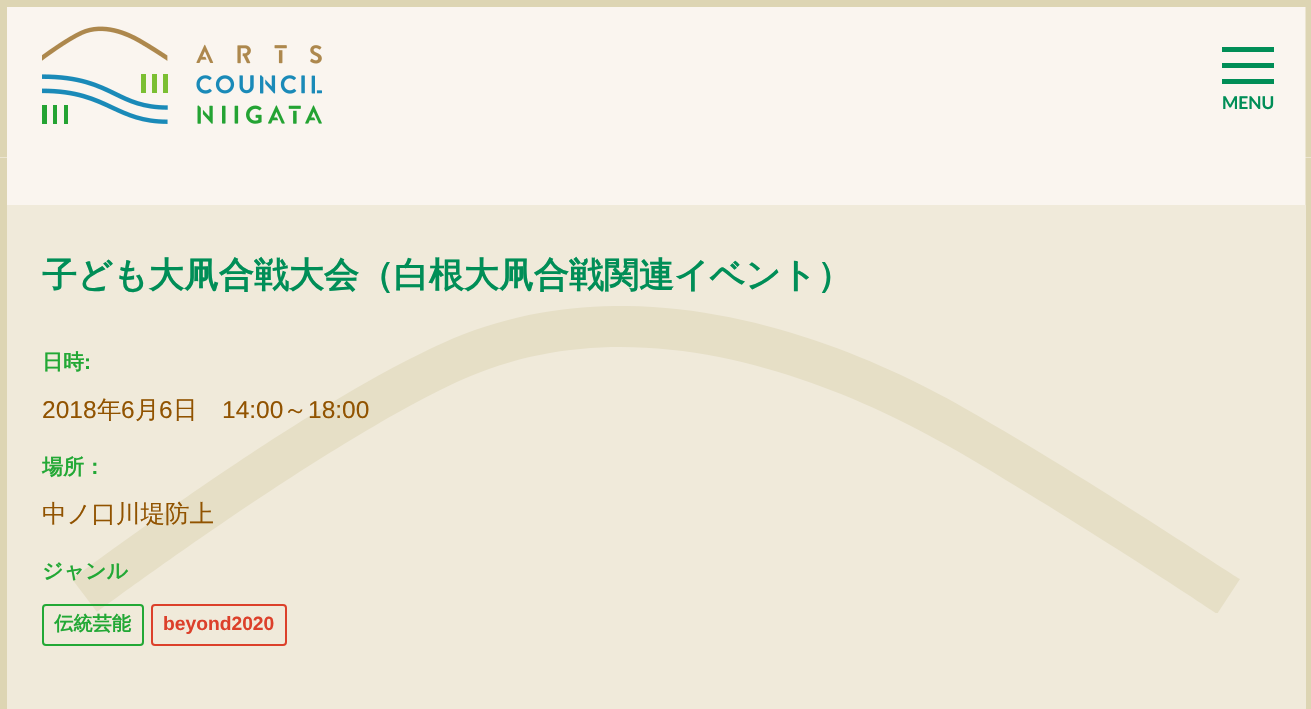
void draw(SkCanvas* canvas) {
    SkPaint paint;
    paint.setAntiAlias(true);
    canvas->clear(0xFFFAF5EF);
    canvas->drawImageRect(SkImages::DeferredFromEncodedData(SkData::MakeFromFileName("img1.png")), SkRect::MakeXYWH(0, 158, 1311, 551), SkSamplingOptions());
    canvas->drawImageRect(SkImages::DeferredFromEncodedData(SkData::MakeFromFileName("img2.png")), SkRect::MakeXYWH(0, 0, 1311, 158), SkSamplingOptions());
    canvas->drawImageRect(SkImages::DeferredFromEncodedData(SkData::MakeFromFileName("img3.png")), SkRect::MakeXYWH(42, 26, 280, 98), SkSamplingOptions());
    paint.setColor(0xFF008E57);
    canvas->drawRect(SkRect::MakeXYWH(1222, 47, 52, 5), paint);
    canvas->drawRect(SkRect::MakeXYWH(1222, 63, 52, 5), paint);
    canvas->drawRect(SkRect::MakeXYWH(1222, 79, 52, 5), paint);
    SkFont font1(fontMgr->matchFamilyStyle("Lato", SkFontStyle::Bold()), 17.5f);
    font1.setSubpixel(true);
    canvas->drawString("MENU", 1222, 109, font1, paint);
    paint.setColor(0xFFF0EADA);
    canvas->drawRect(SkRect::MakeXYWH(7, 205, 1299, 504), paint);
    canvas->save();
    canvas->clipRect(SkRect::MakeXYWH(72, 306, 1169, 307));
    paint.setColor(0xFFE6DFC6);
    canvas->drawPath(SkPathBuilder().moveTo(1217, 614).cubicTo(1215, 612, 1088, 528, 959, 452).cubicTo(851, 389, 644, 296, 459, 381).cubicTo(322, 444, 99, 611, 97, 612).lineTo(72, 579).cubicTo(82, 573, 300, 407, 443, 343).cubicTo(644, 252, 866, 349, 980, 417).cubicTo(1111, 493, 1238, 579, 1240, 579).close().detach(), paint);
    canvas->restore();
    SkFont font2(fontMgr->matchFamilyStyle("WenQuanYi Zen Hei", SkFontStyle::Bold()), 35);
    font2.setSubpixel(true);
    paint.setColor(0xFF008E57);
    canvas->drawString("子ども大凧合戦大会（白根大凧合戦関連イベント）", 42, 287, font2, paint);
    SkFont font3(fontMgr->matchFamilyStyle("WenQuanYi Zen Hei", SkFontStyle::Bold()), 21);
    font3.setSubpixel(true);
    paint.setColor(0xFF22A835);
    canvas->drawString("日時", 42, 369, font3, paint);
    SkFont font4(fontMgr->matchFamilyStyle("Liberation Sans", SkFontStyle::Bold()), 21);
    font4.setSubpixel(true);
    canvas->drawString(":", 84, 369, font4, paint);
    SkFont font5(fontMgr->matchFamilyStyle("Liberation Sans", SkFontStyle::Normal()), 24.5f);
    font5.setSubpixel(true);
    paint.setColor(0xFF915300);
    canvas->drawString("2018", 42, 418, font5, paint);
    SkFont font6(fontMgr->matchFamilyStyle("WenQuanYi Zen Hei", SkFontStyle(500, SkFontStyle::kNormal_Width, SkFontStyle::kUpright_Slant)), 24.5f);
    font6.setSubpixel(true);
    canvas->drawString("年", 97, 418, font6, paint);
    canvas->drawString("6", 121, 418, font5, paint);
    canvas->drawString("月", 135, 418, font6, paint);
    canvas->drawString("6", 159, 418, font5, paint);
    canvas->drawString("日", 173, 418, font6, paint);
    canvas->drawString("14:00", 222, 418, font5, paint);
    canvas->drawString("～", 283, 418, font6, paint);
    canvas->drawString("18:00", 308, 418, font5, paint);
    paint.setColor(0xFF22A835);
    canvas->drawString("場所：", 42, 474, font3, paint);
    paint.setColor(0xFF915300);
    canvas->drawString("中ノ口川堤防上", 42, 522, font6, paint);
    paint.setColor(0xFF22A835);
    canvas->drawString("ジャンル", 42, 578, font3, paint);
    paint.setStyle(SkPaint::kStroke_Style);
    paint.setStrokeWidth(2);
    canvas->drawRoundRect(SkRect::MakeXYWH(43, 605, 100, 40), 3, 3, paint);
    SkFont font7(fontMgr->matchFamilyStyle("WenQuanYi Zen Hei", SkFontStyle::Bold()), 19.25f);
    font7.setSubpixel(true);
    paint.setStyle(SkPaint::kFill_Style);
    canvas->drawString("伝統芸能", 54, 630, font7, paint);
    paint.setStyle(SkPaint::kStroke_Style);
    paint.setColor(0xFFDC402A);
    canvas->drawRoundRect(SkRect::MakeXYWH(152, 605, 134, 40), 3, 3, paint);
    SkFont font8(fontMgr->matchFamilyStyle("Liberation Sans", SkFontStyle::Bold()), 19.25f);
    font8.setSubpixel(true);
    paint.setStyle(SkPaint::kFill_Style);
    canvas->drawString("beyond2020", 163, 630, font8, paint);
}
